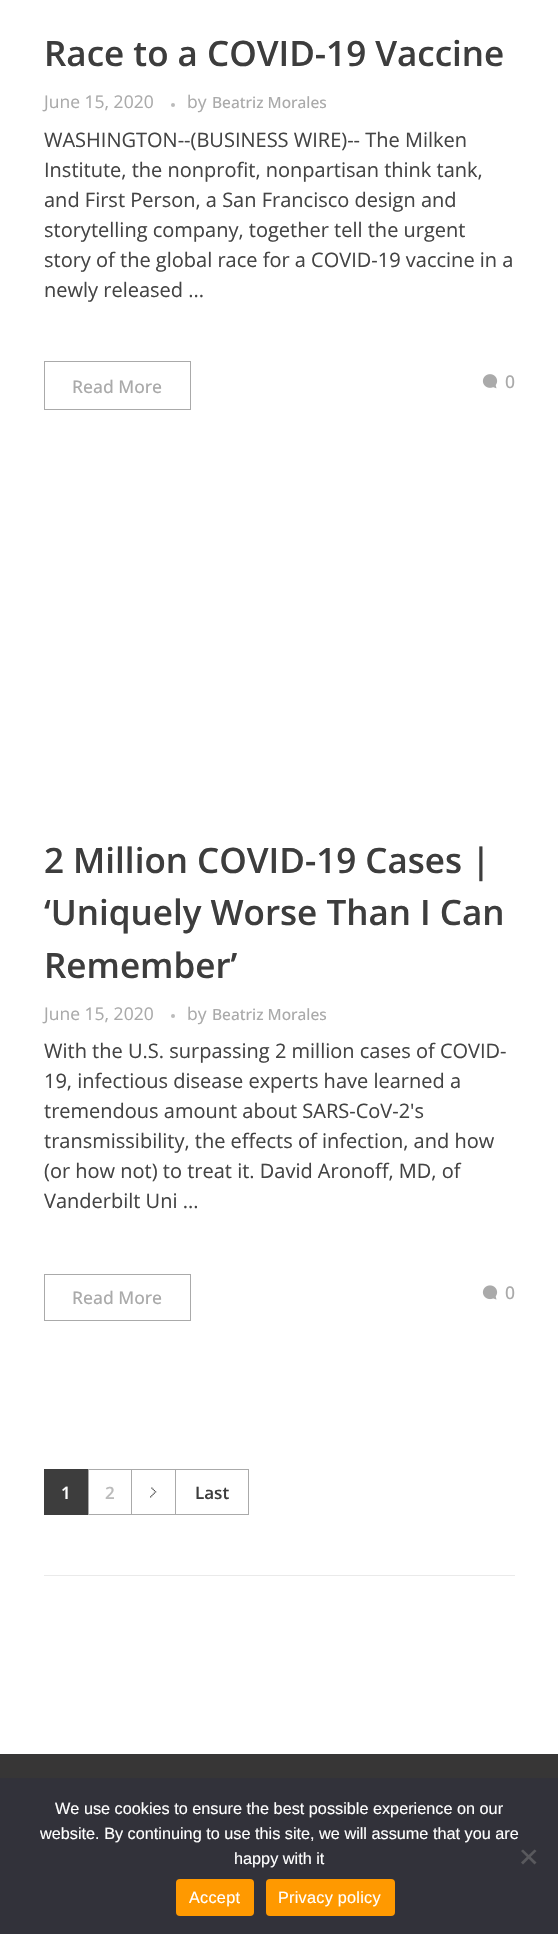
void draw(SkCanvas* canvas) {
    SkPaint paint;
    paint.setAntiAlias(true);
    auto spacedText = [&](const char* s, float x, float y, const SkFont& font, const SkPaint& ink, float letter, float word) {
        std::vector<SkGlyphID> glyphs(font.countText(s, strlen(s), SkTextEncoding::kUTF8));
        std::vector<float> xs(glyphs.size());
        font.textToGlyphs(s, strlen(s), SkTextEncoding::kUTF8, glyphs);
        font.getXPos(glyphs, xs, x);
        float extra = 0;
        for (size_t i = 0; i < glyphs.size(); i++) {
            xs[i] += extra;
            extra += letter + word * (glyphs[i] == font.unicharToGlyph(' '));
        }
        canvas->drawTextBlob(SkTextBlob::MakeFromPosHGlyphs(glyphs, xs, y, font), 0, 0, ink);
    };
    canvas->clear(0xFFFFFFFF);
    SkFont font1(fontMgr->matchFamilyStyle("Open Sans", SkFontStyle(600, SkFontStyle::kNormal_Width, SkFontStyle::kUpright_Slant)), 35);
    font1.setSubpixel(true);
    paint.setColor(0xFF3D3D3D);
    canvas->drawString("Race to a COVID-19 Vaccine", 44, 66, font1, paint);
    SkFont font2(fontMgr->matchFamilyStyle("Open Sans", SkFontStyle::Normal()), 17.5f);
    font2.setSubpixel(true);
    paint.setColor(0xFFAAAAAA);
    canvas->drawString("June 15, 2020", 44, 108, font2, paint);
    paint.setColor(0xFFBBBBBB);
    canvas->drawCircle(173, 105, 2, paint);
    paint.setColor(0xFFAAAAAA);
    canvas->drawString("by", 187, 108, font2, paint);
    SkFont font3(fontMgr->matchFamilyStyle("Open Sans", SkFontStyle(500, SkFontStyle::kNormal_Width, SkFontStyle::kUpright_Slant)), 15.5f);
    font3.setSubpixel(true);
    canvas->drawString("Beatriz Morales", 212, 108, font3, paint);
    SkFont font4(fontMgr->matchFamilyStyle("Open Sans", SkFontStyle::Normal()), 20);
    font4.setSubpixel(true);
    paint.setColor(0xFF444444);
    canvas->drawString("WASHINGTON--(BUSINESS WIRE)-- The Milken", 44, 147, font4, paint);
    canvas->drawString("Institute, the nonprofit, nonpartisan think tank,", 44, 177, font4, paint);
    canvas->drawString("and First Person, a San Francisco design and", 44, 207, font4, paint);
    canvas->drawString("storytelling company, together tell the urgent", 44, 237, font4, paint);
    canvas->drawString("story of the global race for a COVID-19 vaccine in a", 44, 267, font4, paint);
    canvas->drawString("newly released ...", 44, 297, font4, paint);
    paint.setStyle(SkPaint::kStroke_Style);
    paint.setStrokeWidth(1);
    paint.setColor(0xFFAAAAAA);
    canvas->drawRect(SkRect::MakeXYWH(44.5f, 361.5f, 146, 48), paint);
    SkFont font5(fontMgr->matchFamilyStyle("Open Sans", SkFontStyle(500, SkFontStyle::kNormal_Width, SkFontStyle::kUpright_Slant)), 17.5f);
    font5.setSubpixel(true);
    paint.setStyle(SkPaint::kFill_Style);
    canvas->drawString("Read More", 72, 393, font5, paint);
    canvas->drawImageRect(SkImages::DeferredFromEncodedData(SkData::MakeFromFileName("img1.png")), SkRect::MakeXYWH(482, 374, 16, 15), SkSamplingOptions());
    canvas->drawString("0", 505, 388, font5, paint);
    paint.setColor(0xFF3D3D3D);
    canvas->drawString("2 Million COVID-19 Cases |", 44, 873, font1, paint);
    canvas->drawString("‘Uniquely Worse Than I Can", 44, 925, font1, paint);
    canvas->drawString("Remember’", 44, 978, font1, paint);
    paint.setColor(0xFFAAAAAA);
    canvas->drawString("June 15, 2020", 44, 1020, font2, paint);
    paint.setColor(0xFFBBBBBB);
    canvas->drawCircle(173, 1016, 2, paint);
    paint.setColor(0xFFAAAAAA);
    canvas->drawString("by", 187, 1020, font2, paint);
    canvas->drawString("Beatriz Morales", 212, 1020, font3, paint);
    paint.setColor(0xFF444444);
    canvas->drawString("With the U.S. surpassing 2 million cases of COVID-", 44, 1058, font4, paint);
    canvas->drawString("19, infectious disease experts have learned a", 44, 1088, font4, paint);
    canvas->drawString("tremendous amount about SARS-CoV-2's", 44, 1118, font4, paint);
    canvas->drawString("transmissibility, the effects of infection, and how", 44, 1148, font4, paint);
    canvas->drawString("(or how not) to treat it. David Aronoff, MD, of", 44, 1178, font4, paint);
    canvas->drawString("Vanderbilt Uni ...", 44, 1208, font4, paint);
    paint.setStyle(SkPaint::kStroke_Style);
    paint.setColor(0xFFAAAAAA);
    canvas->drawRect(SkRect::MakeXYWH(44.5f, 1274.5f, 146, 46), paint);
    paint.setStyle(SkPaint::kFill_Style);
    canvas->drawString("Read More", 72, 1304, font5, paint);
    canvas->drawImageRect(SkImages::DeferredFromEncodedData(SkData::MakeFromFileName("img2.png")), SkRect::MakeXYWH(482, 1285, 16, 15), SkSamplingOptions());
    canvas->drawString("0", 505, 1299, font5, paint);
    paint.setColor(0xFF3D3D3D);
    canvas->drawRect(SkRect::MakeXYWH(45, 1470, 43, 44), paint);
    canvas->drawRect(SkRect::MakeXYWH(44, 1469, 44, 1), paint);
    canvas->drawRect(SkRect::MakeXYWH(44, 1514, 44, 1), paint);
    canvas->drawRect(SkRect::MakeXYWH(44, 1469, 1, 46), paint);
    SkFont font6(fontMgr->matchFamilyStyle("Open Sans", SkFontStyle(600, SkFontStyle::kNormal_Width, SkFontStyle::kUpright_Slant)), 17);
    font6.setSubpixel(true);
    paint.setColor(0xFFFFFFFF);
    canvas->drawString("1", 61, 1499, font6, paint);
    paint.setColor(0xFFAAAAAA);
    canvas->drawRect(SkRect::MakeXYWH(88, 1469, 87, 1), paint);
    canvas->drawRect(SkRect::MakeXYWH(88, 1514, 87, 1), paint);
    canvas->drawRect(SkRect::MakeXYWH(88, 1469, 1, 46), paint);
    paint.setColor(0xFFBBBBBB);
    canvas->drawString("2", 105, 1499, font6, paint);
    paint.setColor(0xFFAAAAAA);
    canvas->drawRect(SkRect::MakeXYWH(131, 1469, 1, 46), paint);
    canvas->drawImageRect(SkImages::DeferredFromEncodedData(SkData::MakeFromFileName("img3.png")), SkRect::MakeXYWH(150, 1487, 7, 11), SkSamplingOptions());
    paint.setStyle(SkPaint::kStroke_Style);
    canvas->drawRect(SkRect::MakeXYWH(175.5f, 1469.5f, 73, 45), paint);
    paint.setStyle(SkPaint::kFill_Style);
    paint.setColor(0xFF3D3D3D);
    canvas->drawString("Last", 195, 1499, font6, paint);
    paint.setColor(0xFFEAEAEA);
    canvas->drawRect(SkRect::MakeXYWH(44, 1575, 471, 1), paint);
    paint.setColor(0xFF373636);
    canvas->drawRect(SkRect::MakeXYWH(0, 1754, 558, 24), paint);
    paint.setColor(0xFF32323A);
    canvas->drawRect(SkRect::MakeXYWH(0, 1778, 558, 156), paint);
    SkFont font7(fontMgr->matchFamilyStyle("Liberation Sans", SkFontStyle::Normal()), 16.25f);
    font7.setSubpixel(true);
    paint.setColor(0xFFFFFFFF);
    canvas->drawString("We use cookies to ensure the best possible experience on our", 55, 1814, font7, paint);
    canvas->drawString("website. By continuing to use this site, we will assume that you are", 40, 1839, font7, paint);
    canvas->drawString("happy with it", 234, 1864, font7, paint);
    paint.setColor(0xFF59595D);
    canvas->drawPath(SkPathBuilder().moveTo(534.5f, 1849.5f).lineTo(536.5f, 1851).lineTo(523, 1864.5f).lineTo(521, 1862.5f).close().detach(), paint);
    canvas->drawPath(SkPathBuilder().moveTo(521, 1851).lineTo(523, 1849.5f).lineTo(536.5f, 1862.5f).lineTo(534.5f, 1864.5f).close().detach(), paint);
    paint.setColor(0xFFFF9900);
    canvas->drawRoundRect(SkRect::MakeXYWH(176, 1879, 78, 37), 4, 4, paint);
    paint.setColor(0xFFFFFFFF);
    spacedText("Accept", 189, 1903, font7, paint, 0.25f, 0);
    paint.setColor(0xFFFF9900);
    canvas->drawRoundRect(SkRect::MakeXYWH(266, 1879, 129, 37), 4, 4, paint);
    paint.setColor(0xFFFFFFFF);
    spacedText("Privacy policy", 278, 1903, font7, paint, 0.25f, 0);
}
